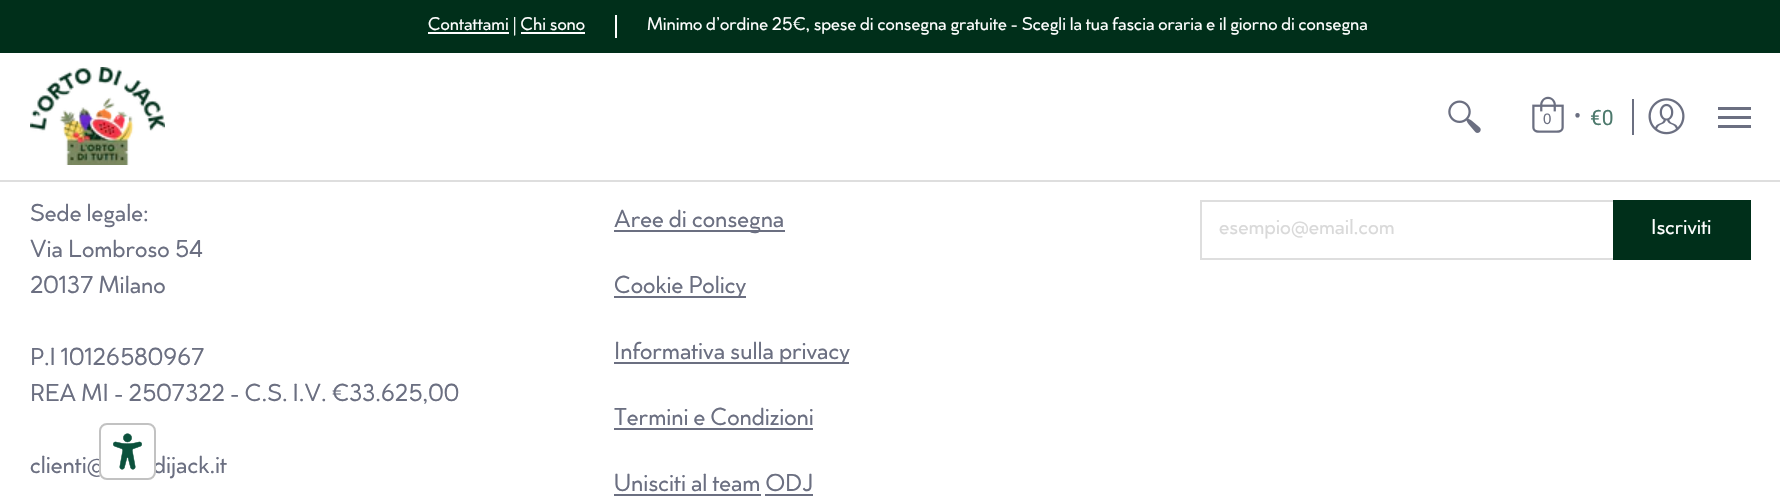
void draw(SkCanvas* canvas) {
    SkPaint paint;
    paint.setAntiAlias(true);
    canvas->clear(0xFFFFFFFF);
    paint.setColor(0xFF002F1A);
    canvas->drawRect(SkRect::MakeXYWH(0, 0, 1780, 53), paint);
    paint.setColor(0xFFFFFFFF);
    canvas->drawRect(SkRect::MakeXYWH(428, 32, 81, 2), paint);
    SkFont font1(fontMgr->matchFamilyStyle("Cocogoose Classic", SkFontStyle::Normal()), 18);
    font1.setSubpixel(true);
    canvas->drawString("Contattami | Chi sono", 428, 30, font1, paint);
    canvas->drawRect(SkRect::MakeXYWH(521, 32, 64, 2), paint);
    canvas->drawRect(SkRect::MakeXYWH(615, 15, 2, 23), paint);
    canvas->drawString("Minimo d’ordine 25€, spese di consegna gratuite - Scegli la tua fascia oraria e il giorno di consegna", 647, 30, font1, paint);
    paint.setColor(0xFFDEDEDE);
    canvas->drawRect(SkRect::MakeXYWH(0, 180, 1780, 2), paint);
    canvas->drawImageRect(SkImages::DeferredFromEncodedData(SkData::MakeFromFileName("img1.png")), SkRect::MakeXYWH(30, 67, 135, 98), SkSamplingOptions());
    canvas->drawImageRect(SkImages::DeferredFromEncodedData(SkData::MakeFromFileName("img2.png")), SkRect::MakeXYWH(1448, 100, 33, 33), SkSamplingOptions());
    canvas->drawImageRect(SkImages::DeferredFromEncodedData(SkData::MakeFromFileName("img3.png")), SkRect::MakeXYWH(1532, 96, 32, 37), SkSamplingOptions());
    SkFont font2(fontMgr->matchFamilyStyle("Liberation Sans", SkFontStyle::Normal()), 15);
    font2.setSubpixel(true);
    paint.setColor(0xFF6B6F81);
    canvas->drawString("0", 1543, 124, font2, paint);
    SkFont font3(fontMgr->matchFamilyStyle("Roboto", SkFontStyle::Normal()), 21);
    font3.setSubpixel(true);
    canvas->drawString("•", 1574, 123, font3, paint);
    paint.setColor(0xFF4C796C);
    canvas->drawString("€0", 1590, 125, font3, paint);
    paint.setColor(0xFF6B6F81);
    canvas->drawRect(SkRect::MakeXYWH(1632, 99, 2, 36), paint);
    canvas->drawImageRect(SkImages::DeferredFromEncodedData(SkData::MakeFromFileName("img4.png")), SkRect::MakeXYWH(1648, 98, 37, 37), SkSamplingOptions());
    canvas->drawRect(SkRect::MakeXYWH(1718, 107, 33, 3), paint);
    canvas->drawRect(SkRect::MakeXYWH(1718, 125, 33, 3), paint);
    canvas->drawRect(SkRect::MakeXYWH(1718, 116, 33, 3), paint);
    SkFont font4(fontMgr->matchFamilyStyle("Cocogoose Classic", SkFontStyle::Normal()), 24);
    font4.setSubpixel(true);
    canvas->drawString("Sede legale:", 30, 221, font4, paint);
    canvas->drawString("Via Lombroso 54", 30, 257, font4, paint);
    canvas->drawString("20137 Milano", 30, 293, font4, paint);
    canvas->drawString("P.I 10126580967", 30, 365, font4, paint);
    canvas->drawString("REA MI - 2507322 - C.S. I.V. €33.625,00", 30, 401, font4, paint);
    canvas->drawString("clienti@", 30, 473, font4, paint);
    canvas->drawString("dijack.it", 153, 473, font4, paint);
    canvas->drawRect(SkRect::MakeXYWH(614, 230, 171, 2), paint);
    canvas->drawString("Aree di consegna", 614, 227, font4, paint);
    canvas->drawRect(SkRect::MakeXYWH(614, 296, 132, 2), paint);
    canvas->drawString("Cookie Policy", 614, 293, font4, paint);
    canvas->drawRect(SkRect::MakeXYWH(614, 362, 235, 2), paint);
    canvas->drawString("Informativa sulla privacy", 614, 359, font4, paint);
    canvas->drawString("Termini e Condizioni", 614, 425, font4, paint);
    canvas->drawRect(SkRect::MakeXYWH(614, 428, 199, 2), paint);
    canvas->drawString("Unisciti al team ODJ", 614, 491, font4, paint);
    canvas->drawRect(SkRect::MakeXYWH(614, 494, 147, 2), paint);
    canvas->drawRect(SkRect::MakeXYWH(765, 494, 48, 2), paint);
    paint.setStyle(SkPaint::kStroke_Style);
    paint.setStrokeWidth(2);
    paint.setColor(0xFFDEDEDE);
    canvas->drawRect(SkRect::MakeXYWH(1201, 201, 414, 58), paint);
    SkFont font5(fontMgr->matchFamilyStyle("Cocogoose Classic", SkFontStyle::Normal()), 21);
    font5.setSubpixel(true);
    paint.setStyle(SkPaint::kFill_Style);
    paint.setColor(0xFFD9D9D9);
    canvas->drawString("esempio@email.com", 1219, 234, font5, paint);
    paint.setColor(0xFF002F1A);
    canvas->drawRect(SkRect::MakeXYWH(1613, 200, 138, 60), paint);
    paint.setColor(0xFFFFFFFF);
    canvas->drawString("Iscriviti", 1651, 234, font5, paint);
    canvas->drawRoundRect(SkRect::MakeXYWH(99, 423, 57, 57), 8, 8, paint);
    canvas->drawImageRect(SkImages::DeferredFromEncodedData(SkData::MakeFromFileName("img5.png")), SkRect::MakeXYWH(113, 433, 29, 37), SkSamplingOptions());
    paint.setStyle(SkPaint::kStroke_Style);
    paint.setColor(0xFFC2C2C2);
    canvas->drawRoundRect(SkRect::MakeXYWH(100, 424, 55, 55), 7, 7, paint);
}
